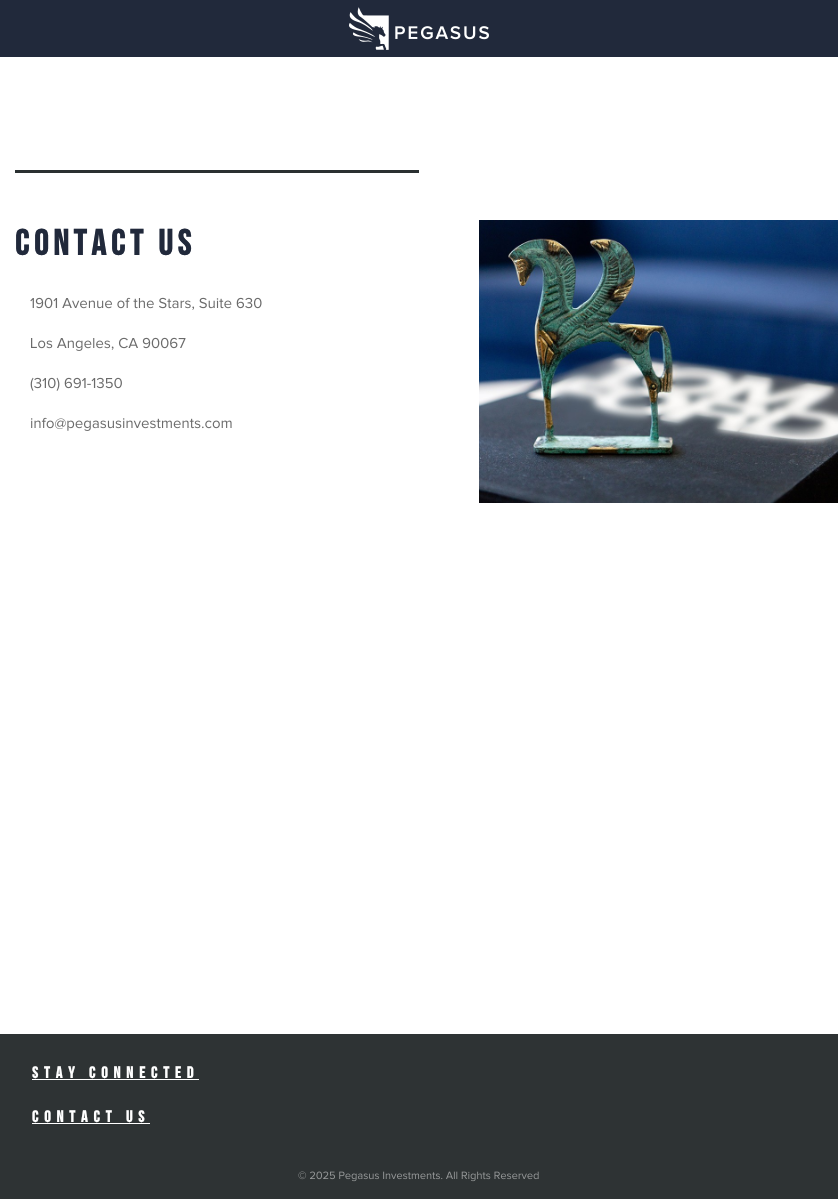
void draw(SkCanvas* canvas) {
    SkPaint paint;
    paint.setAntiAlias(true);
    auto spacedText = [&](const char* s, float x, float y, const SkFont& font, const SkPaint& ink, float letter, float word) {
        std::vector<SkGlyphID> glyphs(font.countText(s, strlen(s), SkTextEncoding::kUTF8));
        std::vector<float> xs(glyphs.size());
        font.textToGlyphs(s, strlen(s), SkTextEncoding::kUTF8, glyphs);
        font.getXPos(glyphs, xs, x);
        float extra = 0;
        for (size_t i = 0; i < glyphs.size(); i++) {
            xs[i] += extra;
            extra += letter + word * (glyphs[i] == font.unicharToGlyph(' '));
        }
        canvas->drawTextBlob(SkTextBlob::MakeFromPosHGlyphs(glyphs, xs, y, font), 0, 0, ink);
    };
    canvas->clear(0xFFFFFFFF);
    paint.setColor(0xFF21293B);
    canvas->drawRect(SkRect::MakeXYWH(0, 0, 838, 57), paint);
    canvas->drawImageRect(SkImages::DeferredFromEncodedData(SkData::MakeFromFileName("img1.png")), SkRect::MakeXYWH(349, 7, 140, 43), SkSamplingOptions());
    paint.setColor(0xFF2A3031);
    canvas->drawRect(SkRect::MakeXYWH(15, 170, 404, 3), paint);
    SkFont font1(fontMgr->matchFamilyStyle("Bebas Neue", SkFontStyle::Bold()), 36);
    font1.setSubpixel(true);
    paint.setColor(0xFF21293B);
    spacedText("Contact Us", 15, 255, font1, paint, 5, 0);
    canvas->drawImageRect(SkImages::DeferredFromEncodedData(SkData::MakeFromFileName("img2.png")), SkRect::MakeXYWH(30, 297, 232, 13), SkSamplingOptions());
    canvas->drawImageRect(SkImages::DeferredFromEncodedData(SkData::MakeFromFileName("img3.png")), SkRect::MakeXYWH(31, 337, 155, 14), SkSamplingOptions());
    canvas->drawImageRect(SkImages::DeferredFromEncodedData(SkData::MakeFromFileName("img4.png")), SkRect::MakeXYWH(30, 377, 92, 14), SkSamplingOptions());
    canvas->drawImageRect(SkImages::DeferredFromEncodedData(SkData::MakeFromFileName("img5.png")), SkRect::MakeXYWH(31, 417, 201, 14), SkSamplingOptions());
    canvas->drawImageRect(SkImages::DeferredFromEncodedData(SkData::MakeFromFileName("img6.png")), SkRect::MakeXYWH(479, 220, 359, 283), SkSamplingOptions());
    paint.setColor(0xFF2E3334);
    canvas->drawRect(SkRect::MakeXYWH(0, 1034, 838, 165), paint);
    SkFont font2(fontMgr->matchFamilyStyle("Bebas Neue", SkFontStyle::Bold()), 16);
    font2.setSubpixel(true);
    paint.setColor(0xFFFFFFFF);
    spacedText("Stay Connected", 32, 1078, font2, paint, 6, 0);
    canvas->drawRect(SkRect::MakeXYWH(32, 1079, 167, 1), paint);
    spacedText("Contact Us", 32, 1122, font2, paint, 6, 0);
    canvas->drawRect(SkRect::MakeXYWH(32, 1123, 118, 1), paint);
    canvas->drawImageRect(SkImages::DeferredFromEncodedData(SkData::MakeFromFileName("img7.png")), SkRect::MakeXYWH(298, 1171, 241, 11), SkSamplingOptions());
}
